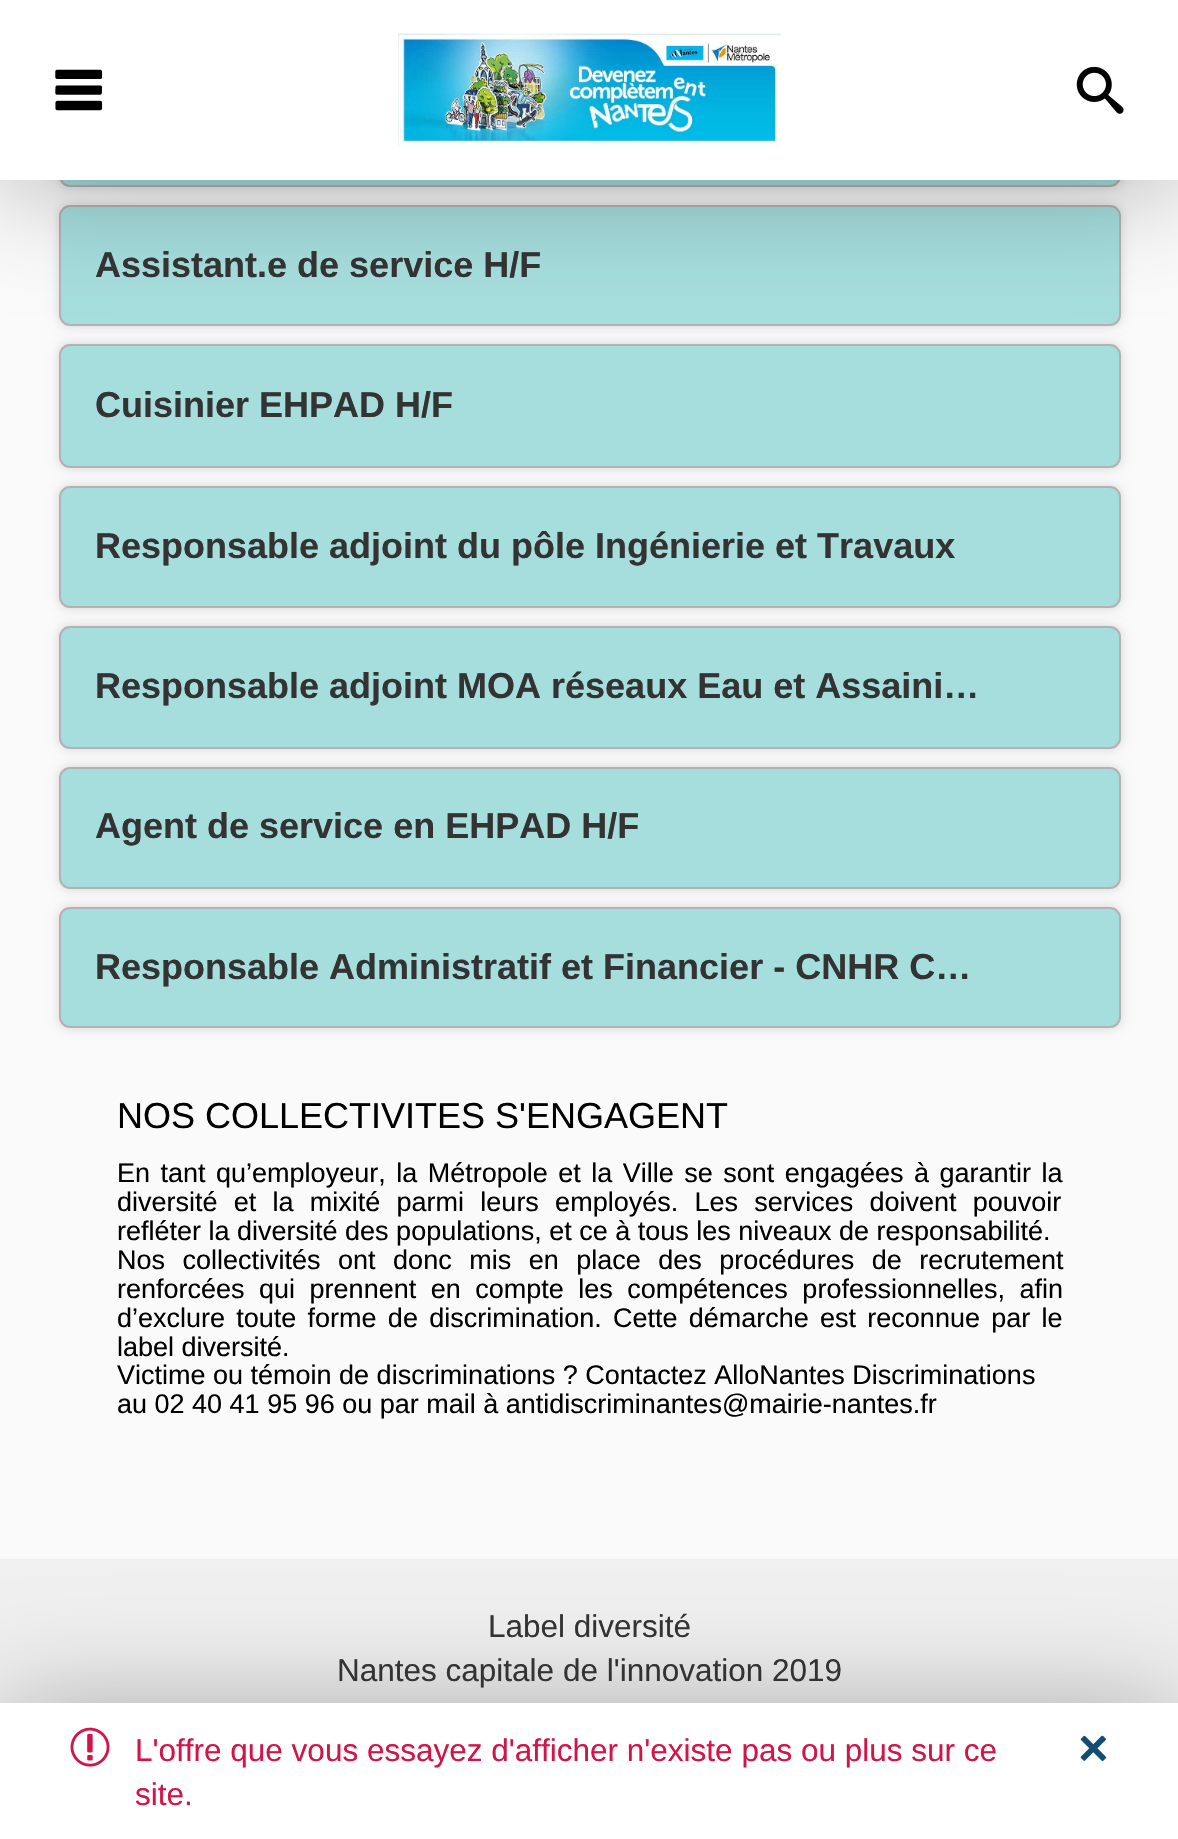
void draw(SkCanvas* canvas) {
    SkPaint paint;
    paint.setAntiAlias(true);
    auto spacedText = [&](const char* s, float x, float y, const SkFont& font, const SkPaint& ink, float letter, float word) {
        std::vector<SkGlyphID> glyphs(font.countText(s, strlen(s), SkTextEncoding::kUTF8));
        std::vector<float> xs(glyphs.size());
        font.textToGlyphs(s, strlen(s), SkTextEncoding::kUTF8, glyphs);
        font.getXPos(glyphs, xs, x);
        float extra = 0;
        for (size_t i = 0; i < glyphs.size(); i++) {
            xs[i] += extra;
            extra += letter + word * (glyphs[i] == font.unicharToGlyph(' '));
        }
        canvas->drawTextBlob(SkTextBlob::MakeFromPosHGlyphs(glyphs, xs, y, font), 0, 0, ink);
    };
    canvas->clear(0xFFFAFAFA);
    paint.setColor(0x26000000);
    paint.setMaskFilter(SkMaskFilter::MakeBlur(kNormal_SkBlurStyle, 5.5f));
    canvas->drawRoundRect(SkRect::MakeXYWH(59, 65, 1062, 122), 11, 11, paint);
    paint.setMaskFilter(nullptr);
    paint.setColor(0xFFA6DDDD);
    canvas->drawRoundRect(SkRect::MakeXYWH(60, 66, 1060, 120), 10, 10, paint);
    paint.setStyle(SkPaint::kStroke_Style);
    paint.setStrokeWidth(2);
    paint.setColor(0xFFB2B2B2);
    canvas->drawRoundRect(SkRect::MakeXYWH(60, 66, 1060, 120), 10, 10, paint);
    paint.setStyle(SkPaint::kFill_Style);
    paint.setColor(0x26000000);
    paint.setMaskFilter(SkMaskFilter::MakeBlur(kNormal_SkBlurStyle, 5.5f));
    canvas->drawRoundRect(SkRect::MakeXYWH(59, 205, 1062, 121), 11, 11, paint);
    paint.setMaskFilter(nullptr);
    paint.setColor(0xFFA6DDDD);
    canvas->drawRoundRect(SkRect::MakeXYWH(60, 206, 1060, 119), 10, 10, paint);
    paint.setStyle(SkPaint::kStroke_Style);
    paint.setColor(0xFFB2B2B2);
    canvas->drawRoundRect(SkRect::MakeXYWH(60, 206, 1060, 119), 10, 10, paint);
    paint.setStyle(SkPaint::kFill_Style);
    paint.setColor(0x26000000);
    paint.setMaskFilter(SkMaskFilter::MakeBlur(kNormal_SkBlurStyle, 5.5f));
    canvas->drawRoundRect(SkRect::MakeXYWH(59, 344, 1062, 124), 11, 11, paint);
    paint.setMaskFilter(nullptr);
    paint.setColor(0xFFA6DDDD);
    canvas->drawRoundRect(SkRect::MakeXYWH(60, 345, 1060, 122), 10, 10, paint);
    paint.setStyle(SkPaint::kStroke_Style);
    paint.setColor(0xFFB2B2B2);
    canvas->drawRoundRect(SkRect::MakeXYWH(60, 345, 1060, 122), 10, 10, paint);
    paint.setStyle(SkPaint::kFill_Style);
    paint.setColor(0x4D000000);
    paint.setMaskFilter(SkMaskFilter::MakeBlur(kNormal_SkBlurStyle, 56));
    canvas->drawRect(SkRect::MakeXYWH(0, 5, 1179, 180), paint);
    paint.setMaskFilter(nullptr);
    paint.setColor(0xFFFFFFFF);
    canvas->drawRect(SkRect::MakeXYWH(0, 0, 1178, 180), paint);
    canvas->drawImageRect(SkImages::DeferredFromEncodedData(SkData::MakeFromFileName("img1.png")), SkRect::MakeXYWH(55, 69, 48, 42), SkSamplingOptions());
    canvas->drawImageRect(SkImages::DeferredFromEncodedData(SkData::MakeFromFileName("img2.png")), SkRect::MakeXYWH(398, 33, 383, 114), SkSamplingOptions());
    canvas->drawImageRect(SkImages::DeferredFromEncodedData(SkData::MakeFromFileName("img3.png")), SkRect::MakeXYWH(1076, 66, 48, 48), SkSamplingOptions());
    SkFont font1(fontMgr->matchFamilyStyle("Liberation Sans", SkFontStyle::Bold()), 36);
    font1.setSubpixel(true);
    paint.setColor(0xFF333333);
    canvas->drawString("Assistant.e de service H/F", 95, 277, font1, paint);
    canvas->drawString("Cuisinier EHPAD H/F", 95, 417, font1, paint);
    paint.setColor(0x26000000);
    paint.setMaskFilter(SkMaskFilter::MakeBlur(kNormal_SkBlurStyle, 5.5f));
    canvas->drawRoundRect(SkRect::MakeXYWH(59, 486, 1062, 122), 11, 11, paint);
    paint.setMaskFilter(nullptr);
    paint.setColor(0xFFA6DDDD);
    canvas->drawRoundRect(SkRect::MakeXYWH(60, 487, 1060, 120), 10, 10, paint);
    paint.setStyle(SkPaint::kStroke_Style);
    paint.setColor(0xFFB2B2B2);
    canvas->drawRoundRect(SkRect::MakeXYWH(60, 487, 1060, 120), 10, 10, paint);
    paint.setStyle(SkPaint::kFill_Style);
    paint.setColor(0xFF333333);
    canvas->drawString("Responsable adjoint du pôle Ingénierie et Travaux", 95, 558, font1, paint);
    paint.setColor(0x26000000);
    paint.setMaskFilter(SkMaskFilter::MakeBlur(kNormal_SkBlurStyle, 5.5f));
    canvas->drawRoundRect(SkRect::MakeXYWH(59, 626, 1062, 123), 11, 11, paint);
    paint.setMaskFilter(nullptr);
    paint.setColor(0xFFA6DDDD);
    canvas->drawRoundRect(SkRect::MakeXYWH(60, 627, 1060, 121), 10, 10, paint);
    paint.setStyle(SkPaint::kStroke_Style);
    paint.setColor(0xFFB2B2B2);
    canvas->drawRoundRect(SkRect::MakeXYWH(60, 627, 1060, 121), 10, 10, paint);
    paint.setStyle(SkPaint::kFill_Style);
    paint.setColor(0xFF333333);
    canvas->drawString("Responsable adjoint MOA réseaux Eau et Assaini…", 95, 698, font1, paint);
    paint.setColor(0x26000000);
    paint.setMaskFilter(SkMaskFilter::MakeBlur(kNormal_SkBlurStyle, 5.5f));
    canvas->drawRoundRect(SkRect::MakeXYWH(59, 767, 1062, 122), 11, 11, paint);
    paint.setMaskFilter(nullptr);
    paint.setColor(0xFFA6DDDD);
    canvas->drawRoundRect(SkRect::MakeXYWH(60, 768, 1060, 120), 10, 10, paint);
    paint.setStyle(SkPaint::kStroke_Style);
    paint.setColor(0xFFB2B2B2);
    canvas->drawRoundRect(SkRect::MakeXYWH(60, 768, 1060, 120), 10, 10, paint);
    paint.setStyle(SkPaint::kFill_Style);
    paint.setColor(0xFF333333);
    canvas->drawString("Agent de service en EHPAD H/F", 95, 838, font1, paint);
    paint.setColor(0x26000000);
    paint.setMaskFilter(SkMaskFilter::MakeBlur(kNormal_SkBlurStyle, 5.5f));
    canvas->drawRoundRect(SkRect::MakeXYWH(59, 907, 1062, 121), 11, 11, paint);
    paint.setMaskFilter(nullptr);
    paint.setColor(0xFFA6DDDD);
    canvas->drawRoundRect(SkRect::MakeXYWH(60, 908, 1060, 119), 10, 10, paint);
    paint.setStyle(SkPaint::kStroke_Style);
    paint.setColor(0xFFB2B2B2);
    canvas->drawRoundRect(SkRect::MakeXYWH(60, 908, 1060, 119), 10, 10, paint);
    paint.setStyle(SkPaint::kFill_Style);
    paint.setColor(0xFF333333);
    canvas->drawString("Responsable Administratif et Financier - CNHR C…", 95, 979, font1, paint);
    SkFont font2(fontMgr->matchFamilyStyle("Liberation Sans", SkFontStyle::Normal()), 36);
    font2.setSubpixel(true);
    paint.setColor(0xFF000000);
    canvas->drawString("NOS COLLECTIVITES S'ENGAGENT", 117, 1128, font2, paint);
    SkFont font3(fontMgr->matchFamilyStyle("Liberation Sans", SkFontStyle::Normal()), 27);
    font3.setSubpixel(true);
    spacedText("En tant qu’employeur, la Métropole et la Ville se sont engagées à garantir la", 117, 1182, font3, paint, 0, 3);
    spacedText("diversité et la mixité parmi leurs employés. Les services doivent pouvoir", 117, 1211, font3, paint, 0, 8.75f);
    canvas->drawString("refléter la diversité des populations, et ce à tous les niveaux de responsabilité.", 117, 1240, font3, paint);
    spacedText("Nos collectivités ont donc mis en place des procédures de recrutement", 117, 1269, font3, paint, 0, 10);
    spacedText("renforcées qui prennent en compte les compétences professionnelles, afin", 117, 1298, font3, paint, 0, 7);
    spacedText("d’exclure toute forme de discrimination. Cette démarche est reconnue par le", 117, 1327, font3, paint, 0, 3.75f);
    canvas->drawString("label diversité.", 117, 1356, font3, paint);
    canvas->drawString("Victime ou témoin de discriminations ? Contactez AlloNantes Discriminations", 117, 1384, font3, paint);
    canvas->drawString("au 02 40 41 95 96 ou par mail à antidiscriminantes@mairie-nantes.fr", 117, 1413, font3, paint);
    paint.setColor(0xFFF0F0F0);
    canvas->drawRect(SkRect::MakeXYWH(0, 1559, 1178, 144), paint);
    paint.setColor(0x4D000000);
    paint.setMaskFilter(SkMaskFilter::MakeBlur(kNormal_SkBlurStyle, 56));
    canvas->drawRect(SkRect::MakeXYWH(0, 1708, 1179, 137), paint);
    paint.setMaskFilter(nullptr);
    paint.setColor(0xFFFFFFFF);
    canvas->drawRect(SkRect::MakeXYWH(0, 1703, 1178, 136), paint);
    canvas->drawImageRect(SkImages::DeferredFromEncodedData(SkData::MakeFromFileName("img4.png")), SkRect::MakeXYWH(70, 1727, 40, 40), SkSamplingOptions());
    SkFont font4(fontMgr->matchFamilyStyle("Liberation Sans", SkFontStyle::Normal()), 31.5f);
    font4.setSubpixel(true);
    paint.setColor(0xFFD11548);
    canvas->drawString("L'offre que vous essayez d'afficher n'existe pas ou plus sur ce", 135, 1761, font4, paint);
    canvas->drawString("site.", 135, 1805, font4, paint);
    canvas->drawImageRect(SkImages::DeferredFromEncodedData(SkData::MakeFromFileName("img5.png")), SkRect::MakeXYWH(1080, 1735, 27, 27), SkSamplingOptions());
    paint.setColor(0xFF333333);
    canvas->drawString("Label diversité", 488, 1637, font4, paint);
    canvas->drawString("Nantes capitale de l'innovation 2019", 337, 1681, font4, paint);
}
